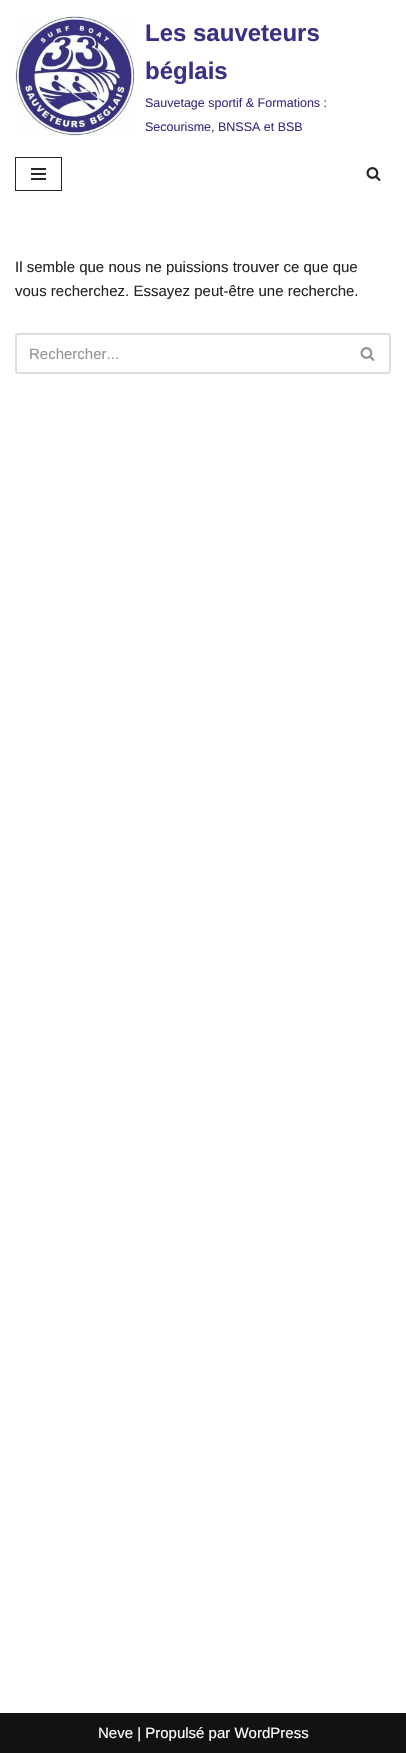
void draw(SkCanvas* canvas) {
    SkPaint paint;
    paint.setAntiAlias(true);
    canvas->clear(0xFFFFFFFF);
    canvas->drawImageRect(SkImages::DeferredFromEncodedData(SkData::MakeFromFileName("img1.png")), SkRect::MakeXYWH(15, 16, 120, 120), SkSamplingOptions());
    SkFont font1(fontMgr->matchFamilyStyle("Liberation Sans", SkFontStyle::Bold()), 24);
    font1.setSubpixel(true);
    paint.setColor(0xFF393184);
    canvas->drawString("Les sauveteurs", 145, 41, font1, paint);
    canvas->drawString("béglais", 145, 79, font1, paint);
    SkFont font2(fontMgr->matchFamilyStyle("Liberation Sans", SkFontStyle::Normal()), 12.5f);
    font2.setSubpixel(true);
    canvas->drawString("Sauvetage sportif & Formations :", 145, 107, font2, paint);
    canvas->drawString("Secourisme, BNSSA et BSB", 145, 131, font2, paint);
    paint.setStyle(SkPaint::kStroke_Style);
    paint.setStrokeWidth(1);
    paint.setColor(0xFF272626);
    canvas->drawRect(SkRect::MakeXYWH(15.5f, 157.5f, 46, 33), paint);
    paint.setStyle(SkPaint::kFill_Style);
    canvas->drawRect(SkRect::MakeXYWH(31, 168, 15, 2), paint);
    canvas->drawRect(SkRect::MakeXYWH(31, 173, 15, 2), paint);
    canvas->drawRect(SkRect::MakeXYWH(31, 178, 15, 2), paint);
    canvas->drawImageRect(SkImages::DeferredFromEncodedData(SkData::MakeFromFileName("img2.png")), SkRect::MakeXYWH(366, 167, 15, 14), SkSamplingOptions());
    SkFont font3(fontMgr->matchFamilyStyle("Liberation Sans", SkFontStyle::Normal()), 15);
    font3.setSubpixel(true);
    canvas->drawString("Il semble que nous ne puissions trouver ce que que", 15, 272, font3, paint);
    canvas->drawString("vous recherchez. Essayez peut-être une recherche.", 15, 296, font3, paint);
    paint.setColor(0xFFDDDDDD);
    canvas->drawPath(SkPathBuilder(SkPathFillType::kEvenOdd).moveTo(18, 333).lineTo(346, 333).lineTo(346, 374).lineTo(18, 374).cubicTo(16, 374, 15, 373, 15, 371).lineTo(15, 336).cubicTo(15, 334, 16, 333, 18, 333).close().moveTo(18, 335).lineTo(346, 335).lineTo(346, 372).lineTo(18, 372).cubicTo(17, 372, 17, 372, 17, 371).lineTo(17, 336).cubicTo(17, 335, 17, 335, 18, 335).close().detach(), paint);
    paint.setColor(0xFF939393);
    canvas->drawString("Rechercher...", 29, 359, font3, paint);
    paint.setColor(0xFFDDDDDD);
    canvas->drawPath(SkPathBuilder(SkPathFillType::kEvenOdd).moveTo(346, 333).lineTo(388, 333).cubicTo(390, 333, 391, 334, 391, 336).lineTo(391, 371).cubicTo(391, 373, 390, 374, 388, 374).lineTo(346, 374).close().moveTo(346, 335).lineTo(388, 335).cubicTo(389, 335, 389, 335, 389, 336).lineTo(389, 371).cubicTo(389, 372, 389, 372, 388, 372).lineTo(346, 372).close().detach(), paint);
    canvas->drawImageRect(SkImages::DeferredFromEncodedData(SkData::MakeFromFileName("img3.png")), SkRect::MakeXYWH(360, 347, 15, 14), SkSamplingOptions());
    paint.setColor(0xFF121212);
    canvas->drawRect(SkRect::MakeXYWH(0, 1713, 406, 40), paint);
    paint.setColor(0xFFFFFFFF);
    canvas->drawString("Neve | Propulsé par WordPress", 98, 1738, font3, paint);
}
